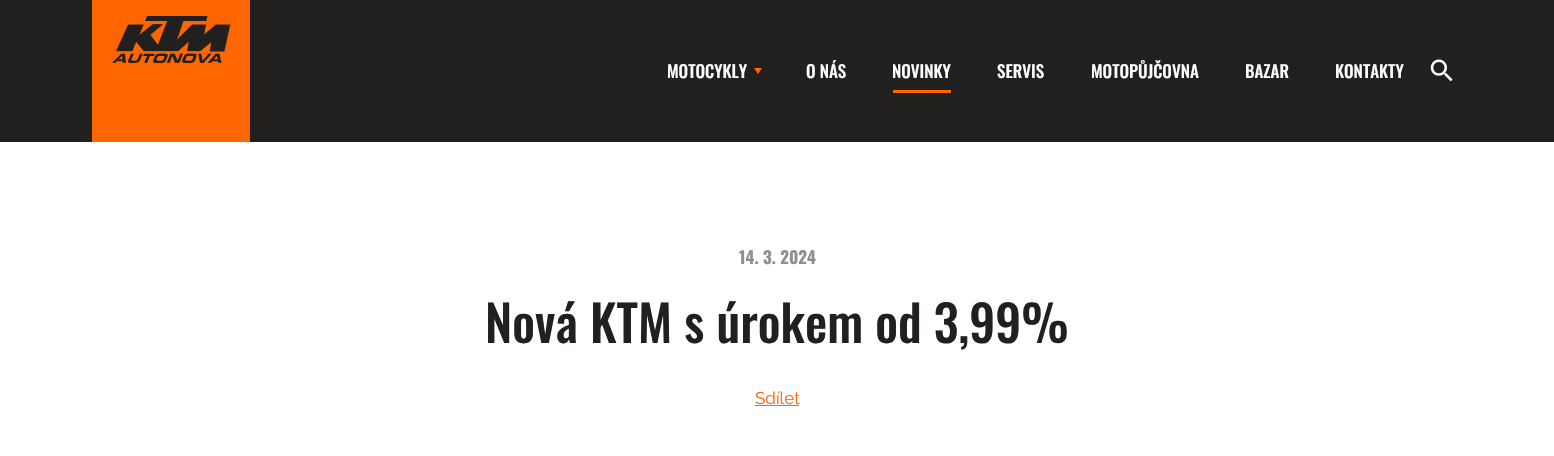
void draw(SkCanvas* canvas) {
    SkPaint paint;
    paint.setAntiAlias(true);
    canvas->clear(0xFFFFFFFF);
    paint.setColor(0xFF221F1F);
    canvas->drawRect(SkRect::MakeXYWH(0, 0, 1554, 142), paint);
    paint.setColor(0xFFFF6600);
    canvas->drawRect(SkRect::MakeXYWH(92, 0, 158, 142), paint);
    canvas->drawImageRect(SkImages::DeferredFromEncodedData(SkData::MakeFromFileName("img1.png")), SkRect::MakeXYWH(112, 16, 119, 47), SkSamplingOptions());
    SkFont font1(fontMgr->matchFamilyStyle("Oswald", SkFontStyle(500, SkFontStyle::kNormal_Width, SkFontStyle::kUpright_Slant)), 17);
    font1.setSubpixel(true);
    paint.setColor(0xFFFFFFFF);
    canvas->drawString("MOTOCYKLY", 667, 78, font1, paint);
    paint.setColor(0xFFFF6600);
    canvas->drawPath(SkPathBuilder().moveTo(754, 68).lineTo(762, 68).lineTo(758, 74).close().detach(), paint);
    paint.setColor(0xFFFFFFFF);
    canvas->drawString("O NÁS", 806, 78, font1, paint);
    canvas->drawString("NOVINKY", 892, 78, font1, paint);
    paint.setColor(0xFFFF6600);
    canvas->drawRect(SkRect::MakeXYWH(893, 90, 58, 3), paint);
    paint.setColor(0xFFFFFFFF);
    canvas->drawString("SERVIS", 997, 78, font1, paint);
    canvas->drawString("MOTOPŮJČOVNA", 1091, 78, font1, paint);
    canvas->drawString("BAZAR", 1245, 78, font1, paint);
    canvas->drawString("KONTAKTY", 1335, 78, font1, paint);
    canvas->drawImageRect(SkImages::DeferredFromEncodedData(SkData::MakeFromFileName("img2.png")), SkRect::MakeXYWH(1430, 59, 23, 23), SkSamplingOptions());
    SkFont font2(fontMgr->matchFamilyStyle("Oswald", SkFontStyle::Bold()), 17);
    font2.setSubpixel(true);
    paint.setColor(0xFF908F8F);
    canvas->drawString("14. 3. 2024", 739, 264, font2, paint);
    SkFont font3(fontMgr->matchFamilyStyle("Oswald", SkFontStyle(500, SkFontStyle::kNormal_Width, SkFontStyle::kUpright_Slant)), 50);
    font3.setSubpixel(true);
    paint.setColor(0xFF221F1F);
    canvas->drawString("Nová KTM s úrokem od 3,99%", 485, 343, font3, paint);
    SkFont font4(fontMgr->matchFamilyStyle("Raleway", SkFontStyle(100, SkFontStyle::kNormal_Width, SkFontStyle::kUpright_Slant)), 17);
    font4.setSubpixel(true);
    paint.setColor(0xFFFF6600);
    canvas->drawString("Sdílet", 755, 404, font4, paint);
    canvas->drawRect(SkRect::MakeXYWH(755, 405, 44, 1), paint);
}
